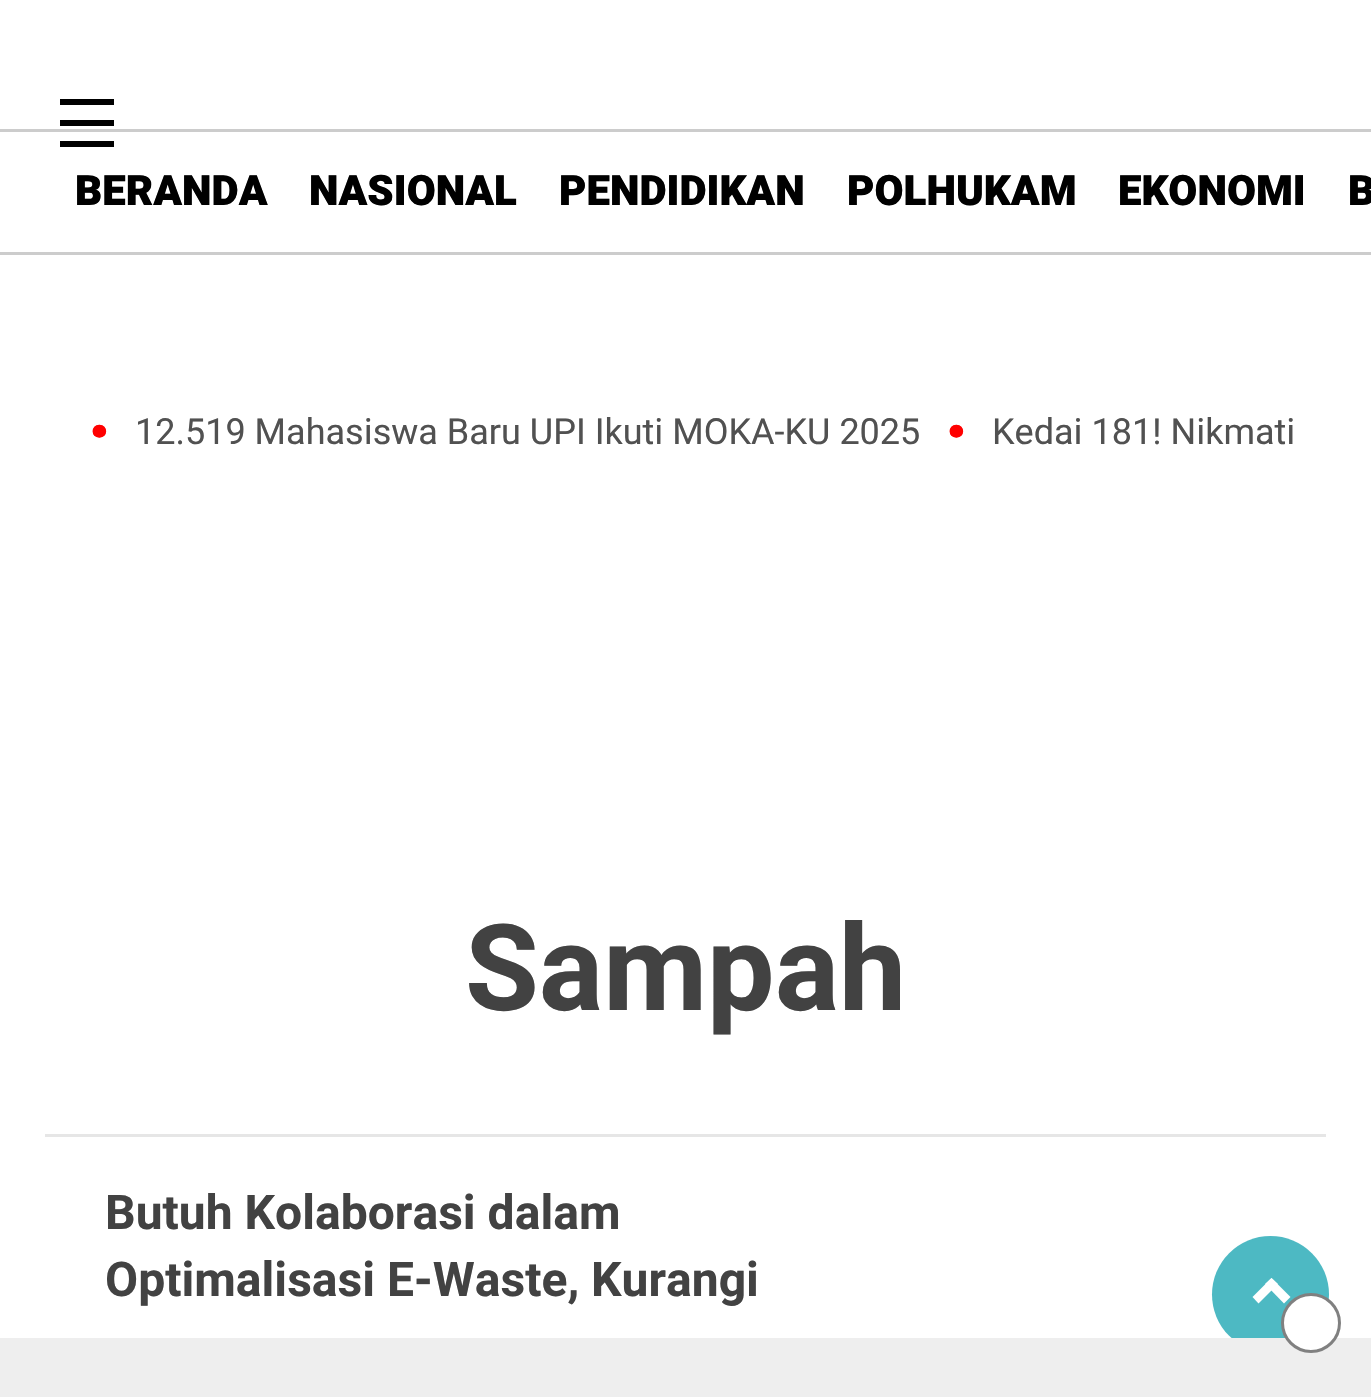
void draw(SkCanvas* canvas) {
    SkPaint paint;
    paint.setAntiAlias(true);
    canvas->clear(0xFFFFFFFF);
    paint.setColor(0xFF000000);
    canvas->drawRect(SkRect::MakeXYWH(60, 99, 54, 6), paint);
    canvas->drawRect(SkRect::MakeXYWH(60, 120, 54, 6), paint);
    canvas->drawRect(SkRect::MakeXYWH(60, 141, 54, 6), paint);
    paint.setColor(0xFFCCCCCC);
    canvas->drawRect(SkRect::MakeXYWH(0, 129, 1371, 3), paint);
    canvas->drawRect(SkRect::MakeXYWH(0, 252, 1371, 3), paint);
    SkFont font1(fontMgr->matchFamilyStyle("Heebo", SkFontStyle(900, SkFontStyle::kNormal_Width, SkFontStyle::kUpright_Slant)), 42);
    font1.setSubpixel(true);
    paint.setColor(0xFF000000);
    canvas->drawString("BERANDA", 75, 205, font1, paint);
    canvas->drawString("NASIONAL", 309, 205, font1, paint);
    canvas->drawString("PENDIDIKAN", 559, 205, font1, paint);
    canvas->drawString("POLHUKAM", 847, 205, font1, paint);
    canvas->drawString("EKONOMI", 1118, 205, font1, paint);
    canvas->drawString("B", 1348, 205, font1, paint);
    SkFont font2(fontMgr->matchFamilyStyle("Heebo", SkFontStyle::Normal()), 120);
    font2.setSubpixel(true);
    paint.setColor(0xFFFF0000);
    canvas->drawString("·", 84, 474, font2, paint);
    SkFont font3(fontMgr->matchFamilyStyle("Heebo", SkFontStyle::Normal()), 36);
    font3.setSubpixel(true);
    paint.setColor(0xFF515151);
    canvas->drawString("12.519 Mahasiswa Baru UPI Ikuti MOKA-KU 2025", 135, 444, font3, paint);
    paint.setColor(0xFFFF0000);
    canvas->drawString("·", 941, 474, font2, paint);
    paint.setColor(0xFF515151);
    canvas->drawString("Kedai 181! Nikmati", 992, 444, font3, paint);
    SkFont font4(fontMgr->matchFamilyStyle("Heebo", SkFontStyle::Bold()), 120);
    font4.setSubpixel(true);
    paint.setColor(0xFF424242);
    canvas->drawString("Sampah", 465, 1010, font4, paint);
    paint.setColor(0xFFE6E6E6);
    canvas->drawRect(SkRect::MakeXYWH(45, 1134, 1281, 3), paint);
    SkFont font5(fontMgr->matchFamilyStyle("Heebo", SkFontStyle::Bold()), 48);
    font5.setSubpixel(true);
    paint.setColor(0xFF424242);
    canvas->drawString("Butuh Kolaborasi dalam", 105, 1229, font5, paint);
    canvas->drawString("Optimalisasi E-Waste, Kurangi", 105, 1296, font5, paint);
    paint.setColor(0xFF4DB9C3);
    canvas->drawCircle(1270.5f, 1294.5f, 58.5f, paint);
    paint.setColor(0xFFFFFFFF);
    canvas->drawPath(SkPathBuilder().moveTo(1258.5f, 1303.5f).lineTo(1252.5f, 1297).lineTo(1271.5f, 1278).lineTo(1278, 1284).close().detach(), paint);
    canvas->drawPath(SkPathBuilder().moveTo(1284, 1303.5f).lineTo(1265, 1284).lineTo(1271.5f, 1278).lineTo(1290.5f, 1297).close().detach(), paint);
    paint.setColor(0xFFEEEEEE);
    canvas->drawRect(SkRect::MakeXYWH(0, 1338, 1371, 59), paint);
    paint.setColor(0xFFFFFFFF);
    canvas->drawCircle(1311, 1323, 28.5f, paint);
    paint.setStyle(SkPaint::kStroke_Style);
    paint.setStrokeWidth(3);
    paint.setColor(0xFF808080);
    canvas->drawCircle(1311, 1323, 28.5f, paint);
}
